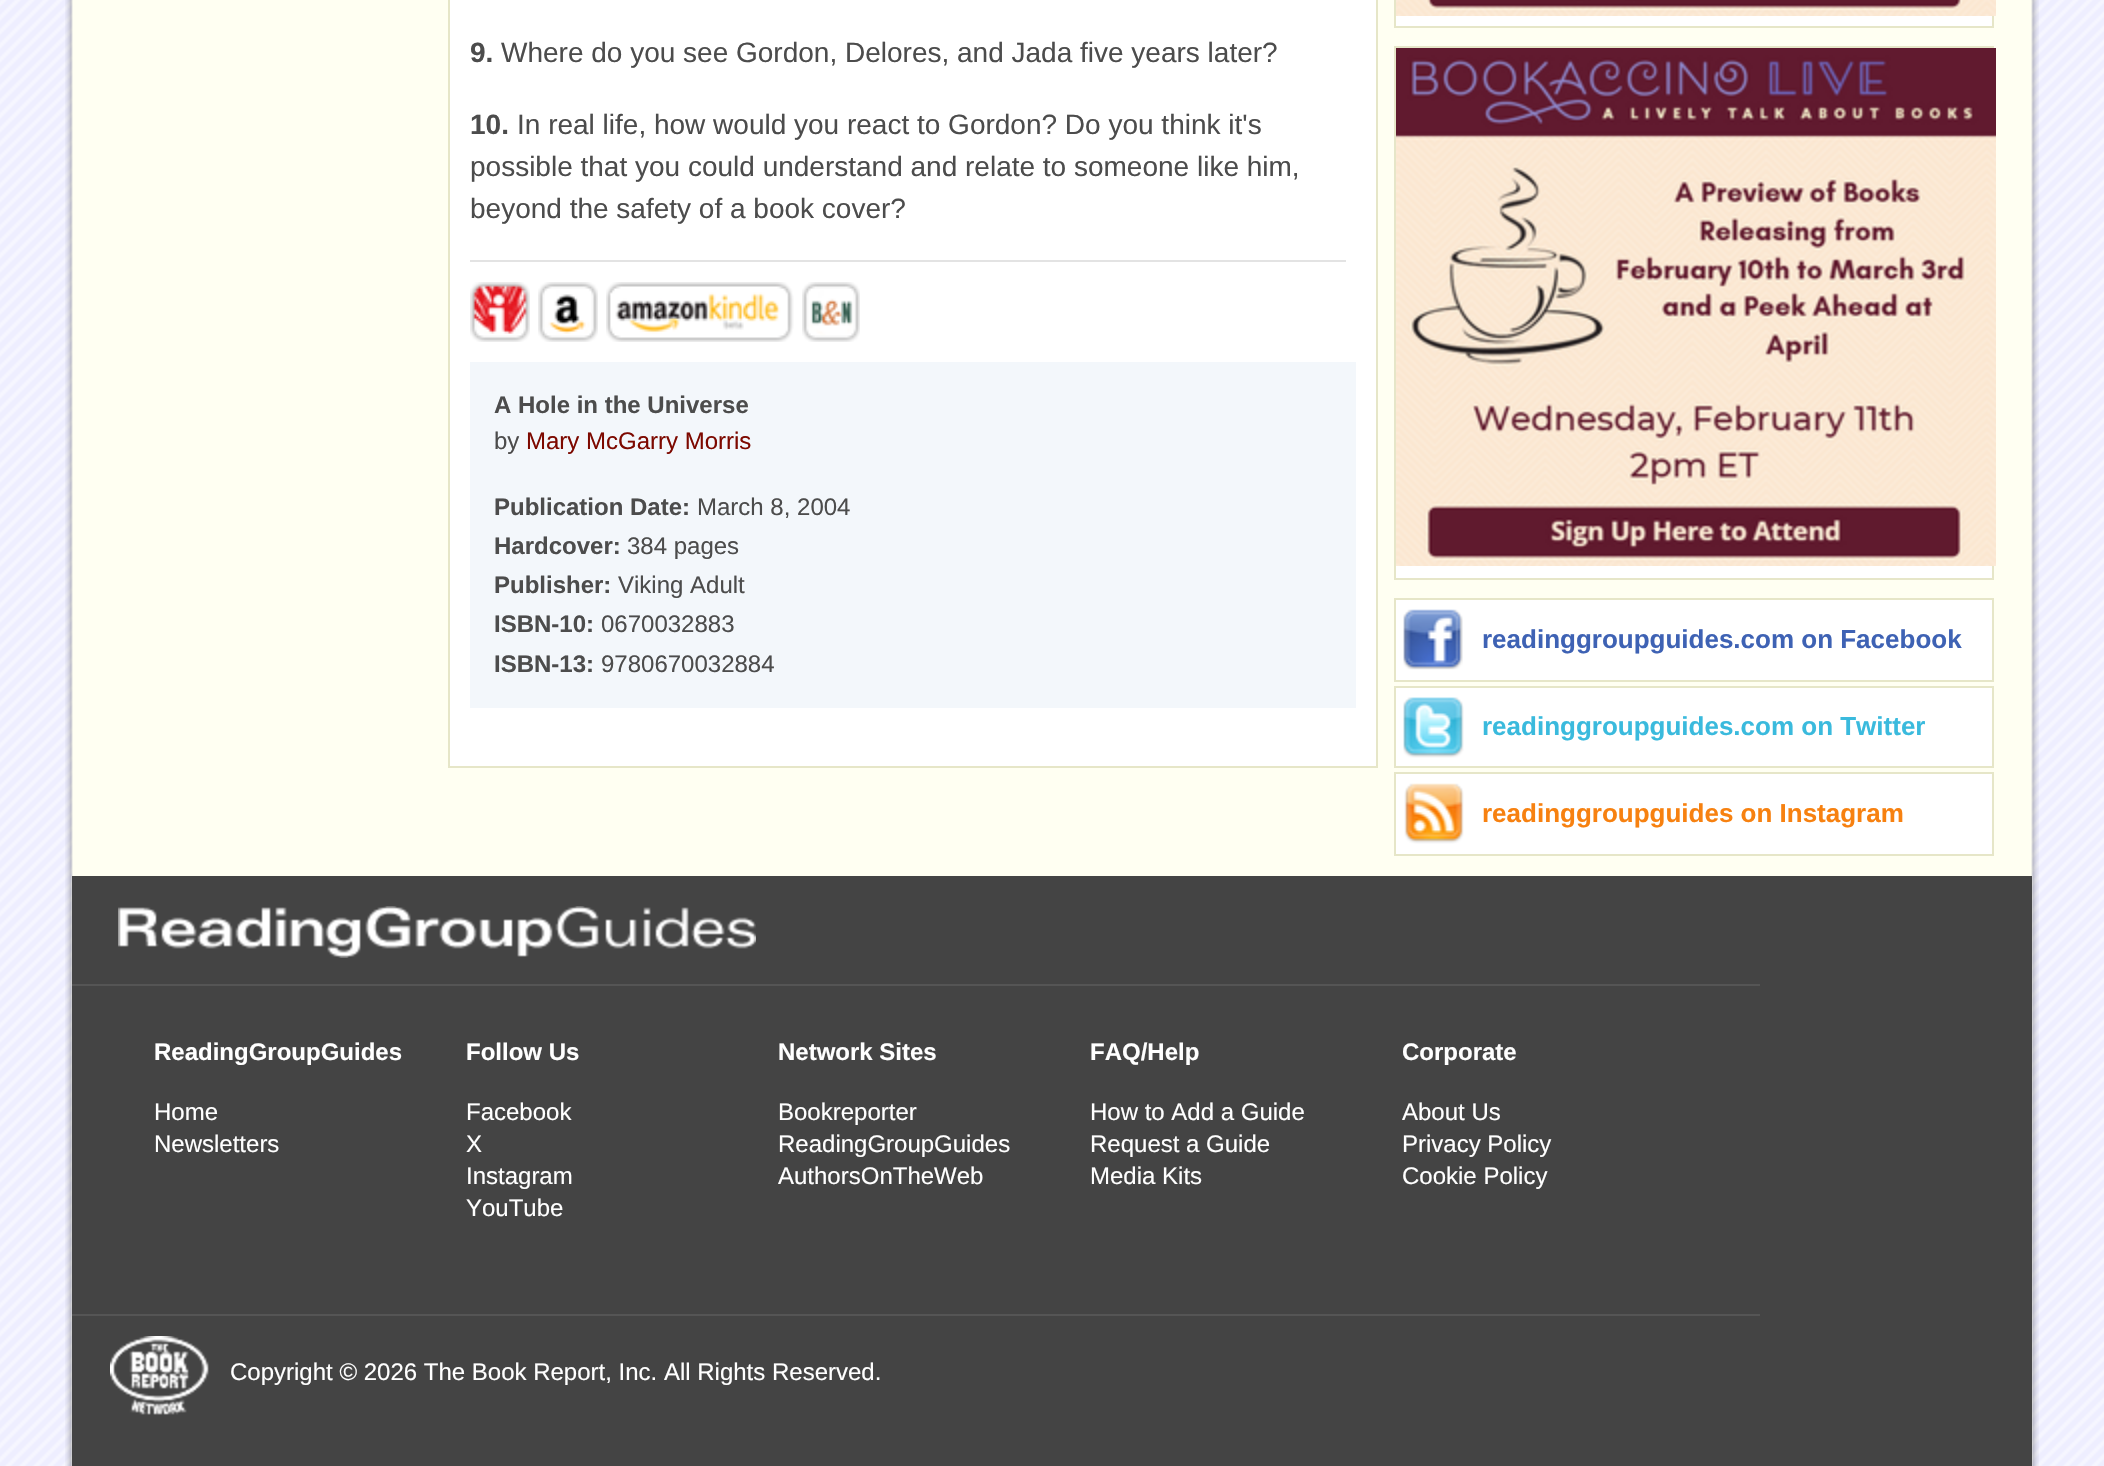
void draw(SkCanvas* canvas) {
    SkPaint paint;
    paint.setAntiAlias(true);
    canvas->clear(0xFFFFFFFF);
    canvas->drawImageRect(SkImages::DeferredFromEncodedData(SkData::MakeFromFileName("img1.png")), SkRect::MakeXYWH(0, 0, 2104, 1466), SkSamplingOptions());
    canvas->drawImageRect(SkImages::DeferredFromEncodedData(SkData::MakeFromFileName("img2.png")), SkRect::MakeXYWH(65, 0, 1974, 1466), SkSamplingOptions());
    paint.setColor(0xFFFFFFFF);
    canvas->drawRect(SkRect::MakeXYWH(449, -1, 928, 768), paint);
    paint.setStyle(SkPaint::kStroke_Style);
    paint.setStrokeWidth(2);
    paint.setColor(0xFFE6E6C8);
    canvas->drawRect(SkRect::MakeXYWH(449, -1, 928, 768), paint);
    SkFont font1(fontMgr->matchFamilyStyle("Liberation Sans", SkFontStyle::Bold()), 28);
    font1.setSubpixel(true);
    paint.setStyle(SkPaint::kFill_Style);
    paint.setColor(0xFF4C4C4C);
    canvas->drawString("9.", 470, 62, font1, paint);
    SkFont font2(fontMgr->matchFamilyStyle("Liberation Sans", SkFontStyle::Normal()), 28);
    font2.setSubpixel(true);
    canvas->drawString("Where do you see Gordon, Delores, and Jada five years later?", 501, 62, font2, paint);
    canvas->drawString("10.", 470, 134, font1, paint);
    canvas->drawString("In real life, how would you react to Gordon? Do you think it's", 517, 134, font2, paint);
    canvas->drawString("possible that you could understand and relate to someone like him,", 470, 176, font2, paint);
    canvas->drawString("beyond the safety of a book cover?", 470, 218, font2, paint);
    paint.setColor(0xFFE3E3E3);
    canvas->drawRect(SkRect::MakeXYWH(470, 260, 876, 2), paint);
    canvas->drawImageRect(SkImages::DeferredFromEncodedData(SkData::MakeFromFileName("img3.png")), SkRect::MakeXYWH(470, 282, 60, 60), SkSamplingOptions());
    canvas->drawImageRect(SkImages::DeferredFromEncodedData(SkData::MakeFromFileName("img4.png")), SkRect::MakeXYWH(538, 282, 60, 60), SkSamplingOptions());
    canvas->drawImageRect(SkImages::DeferredFromEncodedData(SkData::MakeFromFileName("img5.png")), SkRect::MakeXYWH(606, 282, 188, 60), SkSamplingOptions());
    canvas->drawImageRect(SkImages::DeferredFromEncodedData(SkData::MakeFromFileName("img6.png")), SkRect::MakeXYWH(802, 282, 58, 60), SkSamplingOptions());
    paint.setColor(0xFFF3F7FB);
    canvas->drawRect(SkRect::MakeXYWH(470, 362, 886, 346), paint);
    SkFont font3(fontMgr->matchFamilyStyle("Liberation Sans", SkFontStyle::Bold()), 24);
    font3.setSubpixel(true);
    paint.setColor(0xFF4C4C4C);
    canvas->drawString("A Hole in the Universe", 494, 413, font3, paint);
    SkFont font4(fontMgr->matchFamilyStyle("Liberation Sans", SkFontStyle::Normal()), 24);
    font4.setSubpixel(true);
    canvas->drawString("by", 494, 449, font4, paint);
    paint.setColor(0xFF7D0900);
    canvas->drawString("Mary McGarry Morris", 526, 449, font4, paint);
    paint.setColor(0xFF4C4C4C);
    canvas->drawString("Publication Date:", 494, 515, font3, paint);
    canvas->drawString("March 8, 2004", 697, 515, font4, paint);
    canvas->drawString("Hardcover:", 494, 554, font3, paint);
    canvas->drawString("384 pages", 627, 554, font4, paint);
    canvas->drawString("Publisher:", 494, 593, font3, paint);
    canvas->drawString("Viking Adult", 618, 593, font4, paint);
    canvas->drawString("ISBN-10:", 494, 632, font3, paint);
    canvas->drawString("0670032883", 601, 632, font4, paint);
    canvas->drawString("ISBN-13:", 494, 672, font3, paint);
    canvas->drawString("9780670032884", 601, 672, font4, paint);
    paint.setColor(0xFFFFFFFF);
    canvas->drawRect(SkRect::MakeXYWH(1396, 16, 596, 10), paint);
    paint.setStyle(SkPaint::kStroke_Style);
    paint.setColor(0xFFE6E6C8);
    canvas->drawRect(SkRect::MakeXYWH(1395, -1, 598, 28), paint);
    canvas->drawImageRect(SkImages::DeferredFromEncodedData(SkData::MakeFromFileName("img7.png")), SkRect::MakeXYWH(1396, 0, 600, 16), SkSamplingOptions());
    paint.setStyle(SkPaint::kFill_Style);
    paint.setColor(0xFFFFFFFF);
    canvas->drawRect(SkRect::MakeXYWH(1396, 566, 596, 12), paint);
    paint.setStyle(SkPaint::kStroke_Style);
    paint.setColor(0xFFE6E6C8);
    canvas->drawRect(SkRect::MakeXYWH(1395, 47, 598, 532), paint);
    canvas->drawImageRect(SkImages::DeferredFromEncodedData(SkData::MakeFromFileName("img8.png")), SkRect::MakeXYWH(1396, 48, 600, 518), SkSamplingOptions());
    paint.setStyle(SkPaint::kFill_Style);
    paint.setColor(0xFFFFFFFF);
    canvas->drawRect(SkRect::MakeXYWH(1396, 600, 596, 80), paint);
    canvas->drawImageRect(SkImages::DeferredFromEncodedData(SkData::MakeFromFileName("img9.png")), SkRect::MakeXYWH(1403, 609, 60, 61), SkSamplingOptions());
    paint.setStyle(SkPaint::kStroke_Style);
    paint.setColor(0xFFE6E6C8);
    canvas->drawRect(SkRect::MakeXYWH(1395, 599, 598, 82), paint);
    SkFont font5(fontMgr->matchFamilyStyle("Liberation Sans", SkFontStyle::Bold()), 26);
    font5.setSubpixel(true);
    paint.setStyle(SkPaint::kFill_Style);
    paint.setColor(0xFF3E62B4);
    canvas->drawString("readinggroupguides.com on Facebook", 1482, 648, font5, paint);
    paint.setColor(0xFFFFFFFF);
    canvas->drawRect(SkRect::MakeXYWH(1396, 688, 596, 78), paint);
    canvas->drawImageRect(SkImages::DeferredFromEncodedData(SkData::MakeFromFileName("img10.png")), SkRect::MakeXYWH(1403, 697, 61, 61), SkSamplingOptions());
    paint.setStyle(SkPaint::kStroke_Style);
    paint.setColor(0xFFE6E6C8);
    canvas->drawRect(SkRect::MakeXYWH(1395, 687, 598, 80), paint);
    paint.setStyle(SkPaint::kFill_Style);
    paint.setColor(0xFF3ABADD);
    canvas->drawString("readinggroupguides.com on Twitter", 1482, 735, font5, paint);
    paint.setColor(0xFFFFFFFF);
    canvas->drawRect(SkRect::MakeXYWH(1396, 774, 596, 80), paint);
    canvas->drawImageRect(SkImages::DeferredFromEncodedData(SkData::MakeFromFileName("img11.png")), SkRect::MakeXYWH(1404, 783, 60, 61), SkSamplingOptions());
    paint.setStyle(SkPaint::kStroke_Style);
    paint.setColor(0xFFE6E6C8);
    canvas->drawRect(SkRect::MakeXYWH(1395, 773, 598, 82), paint);
    paint.setStyle(SkPaint::kFill_Style);
    paint.setColor(0xFFF78110);
    canvas->drawString("readinggroupguides on Instagram", 1482, 822, font5, paint);
    paint.setColor(0xFF444444);
    canvas->drawRect(SkRect::MakeXYWH(72, 876, 1960, 590), paint);
    canvas->drawImageRect(SkImages::DeferredFromEncodedData(SkData::MakeFromFileName("img12.png")), SkRect::MakeXYWH(118, 906, 638, 52), SkSamplingOptions());
    paint.setColor(0xFF555555);
    canvas->drawRect(SkRect::MakeXYWH(72, 984, 1688, 2), paint);
    canvas->drawRect(SkRect::MakeXYWH(72, 1314, 1688, 2), paint);
    paint.setColor(0xFFFFFFFF);
    canvas->drawString("ReadingGroupGuides", 154, 1060, font3, paint);
    canvas->drawString("Home", 154, 1120, font4, paint);
    canvas->drawString("Newsletters", 154, 1152, font4, paint);
    canvas->drawString("Follow Us", 466, 1060, font3, paint);
    canvas->drawString("Facebook", 466, 1120, font4, paint);
    canvas->drawString("X", 466, 1152, font4, paint);
    canvas->drawString("Instagram", 466, 1184, font4, paint);
    canvas->drawString("YouTube", 466, 1216, font4, paint);
    canvas->drawString("Network Sites", 778, 1060, font3, paint);
    canvas->drawString("Bookreporter", 778, 1120, font4, paint);
    canvas->drawString("ReadingGroupGuides", 778, 1152, font4, paint);
    canvas->drawString("AuthorsOnTheWeb", 778, 1184, font4, paint);
    canvas->drawString("FAQ/Help", 1090, 1060, font3, paint);
    canvas->drawString("How to Add a Guide", 1090, 1120, font4, paint);
    canvas->drawString("Request a Guide", 1090, 1152, font4, paint);
    canvas->drawString("Media Kits", 1090, 1184, font4, paint);
    canvas->drawString("Corporate", 1402, 1060, font3, paint);
    canvas->drawString("About Us", 1402, 1120, font4, paint);
    canvas->drawString("Privacy Policy", 1402, 1152, font4, paint);
    canvas->drawString("Cookie Policy", 1402, 1184, font4, paint);
    canvas->drawImageRect(SkImages::DeferredFromEncodedData(SkData::MakeFromFileName("img13.png")), SkRect::MakeXYWH(110, 1336, 99, 79), SkSamplingOptions());
    canvas->drawString("Copyright © 2026 The Book Report, Inc. All Rights Reserved.", 230, 1380, font4, paint);
}
